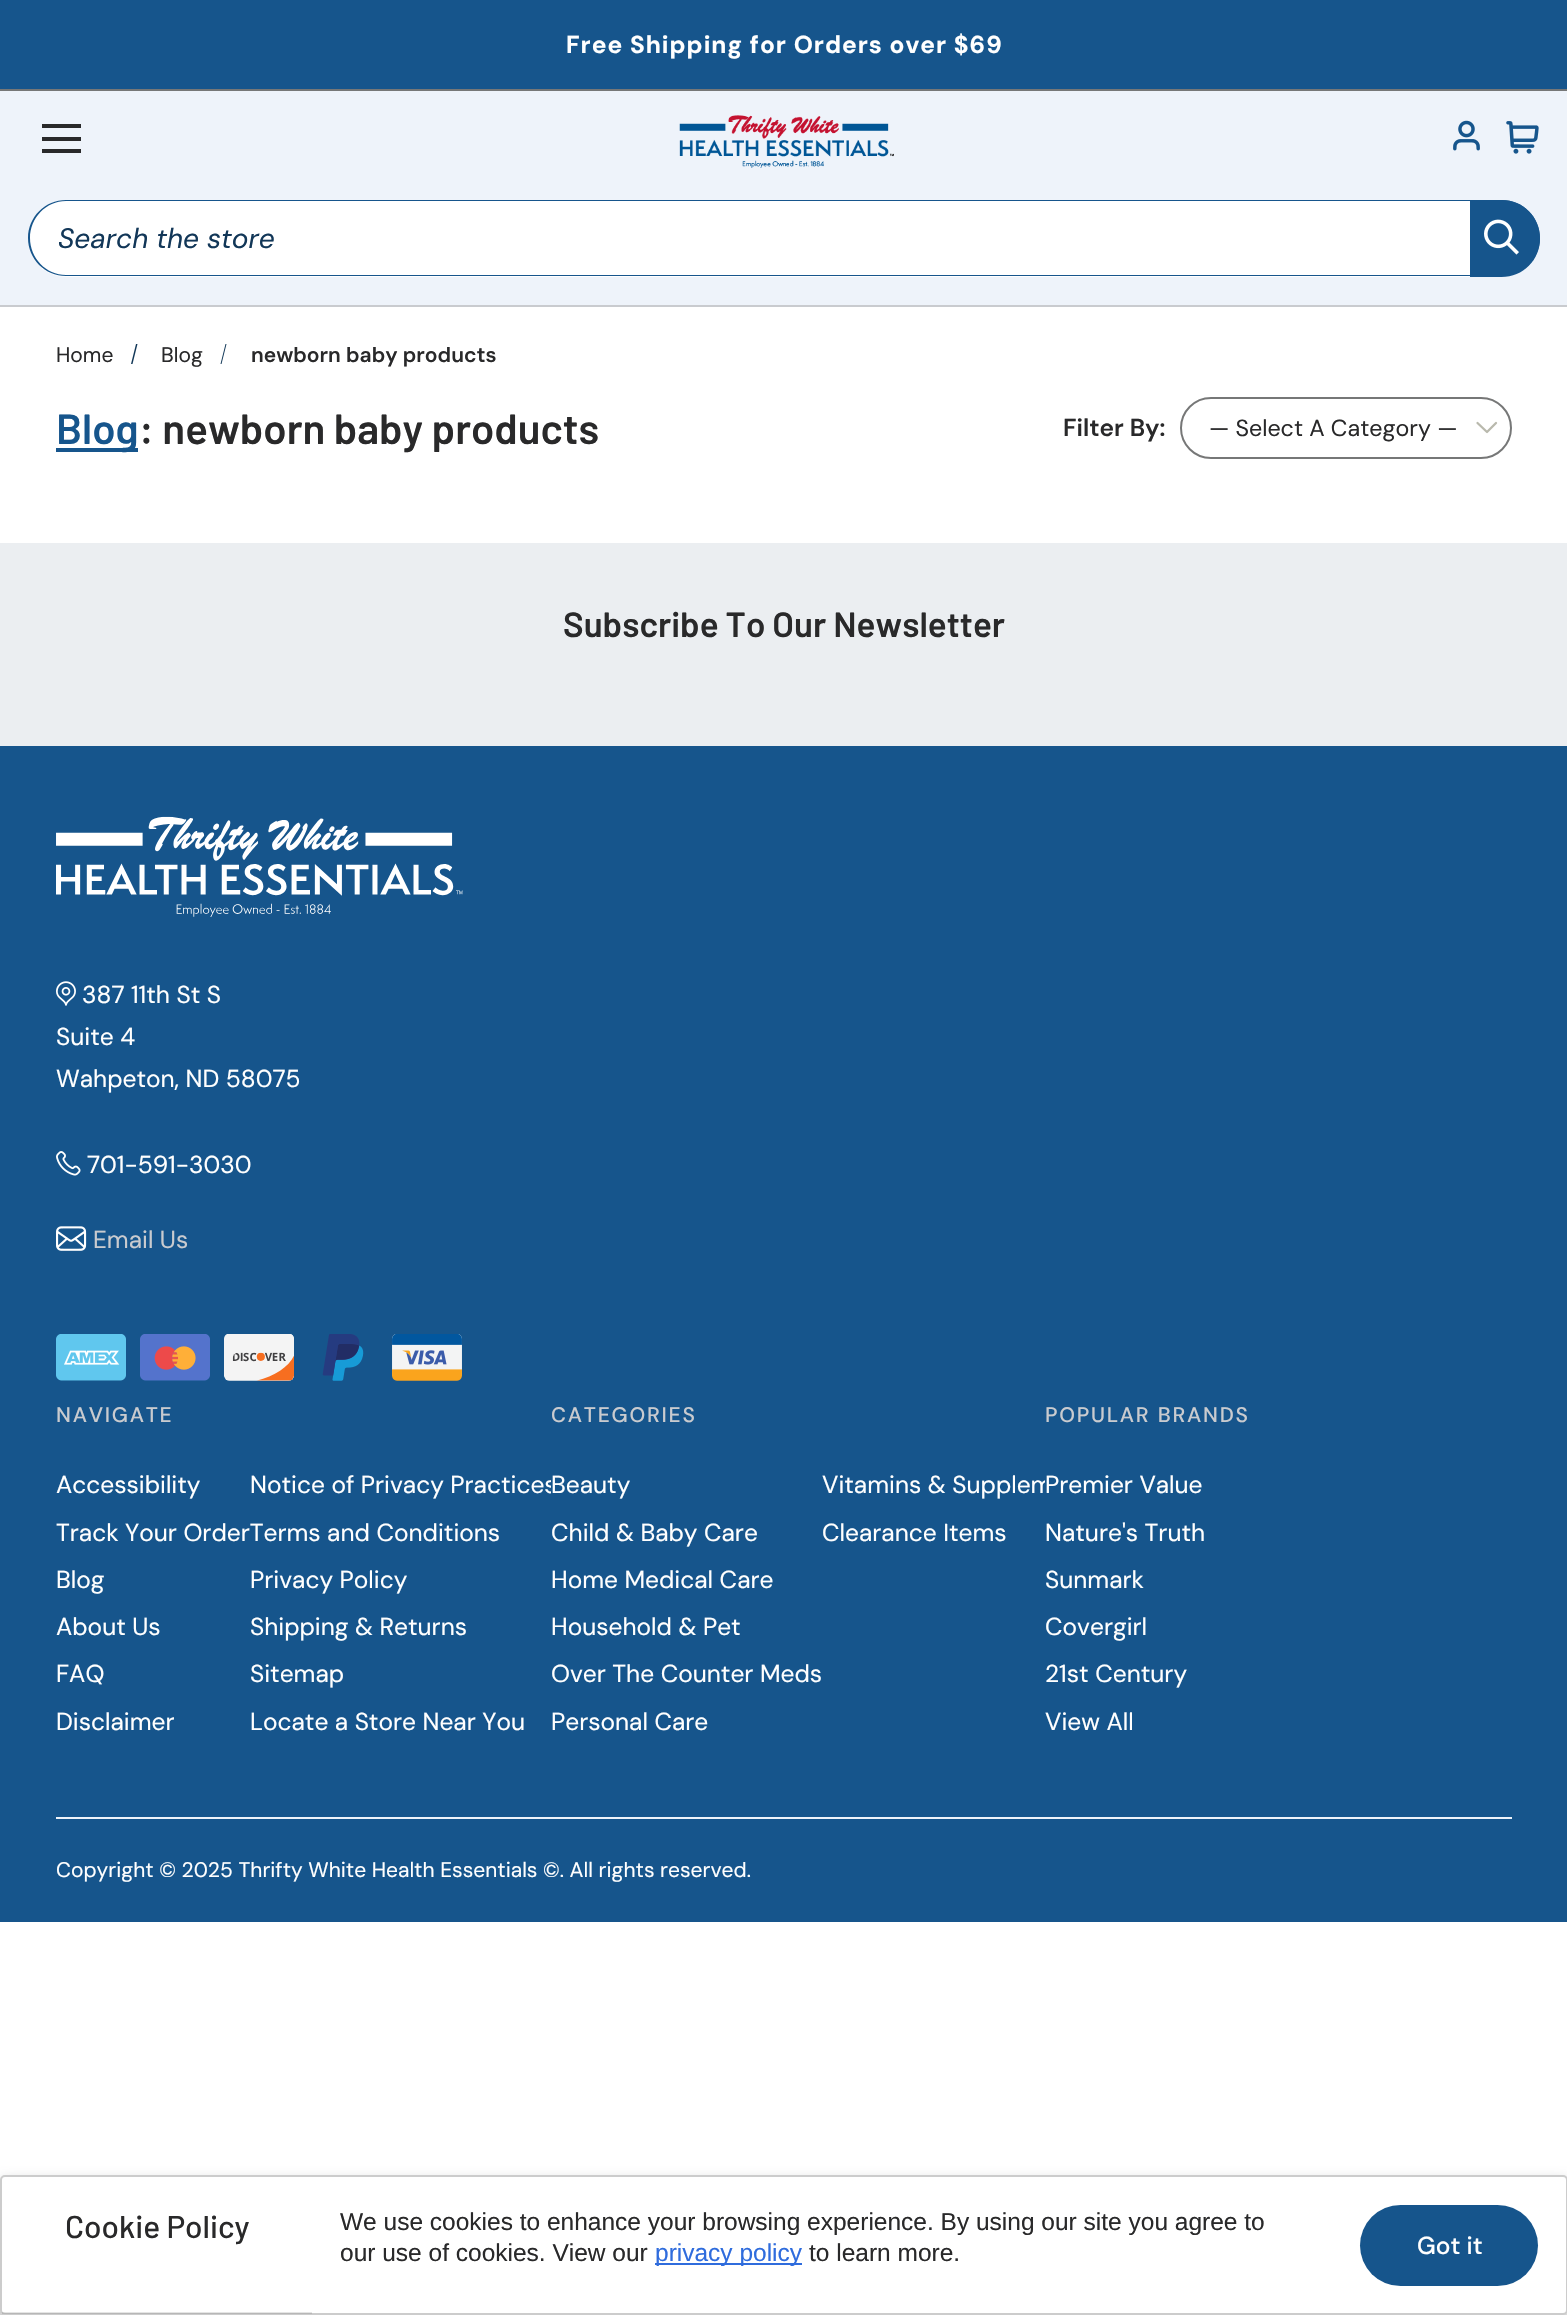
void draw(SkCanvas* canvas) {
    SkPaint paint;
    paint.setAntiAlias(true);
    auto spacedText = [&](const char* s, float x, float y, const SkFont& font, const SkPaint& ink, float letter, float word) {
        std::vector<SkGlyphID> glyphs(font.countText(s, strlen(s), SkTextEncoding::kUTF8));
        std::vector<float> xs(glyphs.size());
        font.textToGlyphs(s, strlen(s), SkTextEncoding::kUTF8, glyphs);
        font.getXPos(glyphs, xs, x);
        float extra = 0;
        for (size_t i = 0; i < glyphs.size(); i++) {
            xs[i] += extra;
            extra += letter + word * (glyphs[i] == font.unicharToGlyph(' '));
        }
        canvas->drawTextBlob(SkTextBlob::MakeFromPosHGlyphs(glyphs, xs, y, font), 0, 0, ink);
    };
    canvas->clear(0xFFFFFFFF);
    paint.setColor(0xFF16558C);
    canvas->drawRect(SkRect::MakeXYWH(0, 0, 1567, 89), paint);
    paint.setColor(0xFF767777);
    canvas->drawRect(SkRect::MakeXYWH(0, 89, 1567, 2), paint);
    SkFont font1(fontMgr->matchFamilyStyle("DM Sans", SkFontStyle::Bold()), 24.5f);
    font1.setSubpixel(true);
    paint.setColor(0xFFFFFFFF);
    spacedText("Free Shipping for Orders over $69", 566, 53, font1, paint, 1, 0);
    paint.setColor(0xFFEEF3FA);
    canvas->drawRect(SkRect::MakeXYWH(0, 91, 1567, 214), paint);
    paint.setColor(0xFFC9CBCF);
    canvas->drawRect(SkRect::MakeXYWH(0, 305, 1567, 2), paint);
    paint.setColor(0xFF29292A);
    canvas->drawRect(SkRect::MakeXYWH(42, 124, 39, 4), paint);
    canvas->drawRect(SkRect::MakeXYWH(42, 137, 39, 4), paint);
    canvas->drawRect(SkRect::MakeXYWH(42, 149, 39, 4), paint);
    canvas->drawImageRect(SkImages::DeferredFromEncodedData(SkData::MakeFromFileName("img1.png")), SkRect::MakeXYWH(679, 115, 215, 53), SkSamplingOptions());
    canvas->drawImageRect(SkImages::DeferredFromEncodedData(SkData::MakeFromFileName("img2.png")), SkRect::MakeXYWH(1453, 120, 27, 31), SkSamplingOptions());
    canvas->drawImageRect(SkImages::DeferredFromEncodedData(SkData::MakeFromFileName("img3.png")), SkRect::MakeXYWH(1506, 121, 33, 33), SkSamplingOptions());
    paint.setColor(0xFFFFFFFF);
    canvas->drawPath(SkPathBuilder().moveTo(66.5f, 200).lineTo(1470, 200).lineTo(1470, 277).lineTo(66.5f, 277).cubicTo(45, 277, 28, 260, 28, 238.5f).cubicTo(28, 217, 45, 200, 66.5f, 200).close().detach(), paint);
    paint.setColor(0xFF16558C);
    canvas->drawPath(SkPathBuilder(SkPathFillType::kEvenOdd).moveTo(66, 200).lineTo(1470, 200).lineTo(1470, 276).lineTo(66, 276).cubicTo(45, 276, 28, 259, 28, 238).cubicTo(28, 217, 45, 200, 66, 200).close().moveTo(66, 201).lineTo(1470, 201).lineTo(1470, 275).lineTo(66, 275).cubicTo(46, 275, 30, 258, 30, 238).cubicTo(30, 218, 46, 201, 66, 201).close().detach(), paint);
    SkFont font2(fontMgr->matchFamilyStyle("DM Sans", SkFontStyle::Italic()), 28);
    font2.setSubpixel(true);
    paint.setColor(0xFF123758);
    canvas->drawString("Search the store", 58, 248, font2, paint);
    paint.setColor(0xFF16558C);
    canvas->drawPath(SkPathBuilder().moveTo(1470, 200).lineTo(1501.5f, 200).cubicTo(1523, 200, 1540, 217, 1540, 238.5f).cubicTo(1540, 260, 1523, 277, 1501.5f, 277).lineTo(1470, 277).close().detach(), paint);
    canvas->drawPath(SkPathBuilder(SkPathFillType::kEvenOdd).moveTo(1470, 200).lineTo(1502, 200).cubicTo(1523, 200, 1540, 217, 1540, 238).cubicTo(1540, 259, 1523, 276, 1502, 276).lineTo(1470, 276).close().moveTo(1470, 201).lineTo(1502, 201).cubicTo(1522, 201, 1538, 218, 1538, 238).cubicTo(1538, 258, 1522, 275, 1502, 275).lineTo(1470, 275).close().detach(), paint);
    canvas->drawImageRect(SkImages::DeferredFromEncodedData(SkData::MakeFromFileName("img4.png")), SkRect::MakeXYWH(1484, 219, 35, 36), SkSamplingOptions());
    SkFont font3(fontMgr->matchFamilyStyle("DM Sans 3", SkFontStyle::Normal()), 21);
    font3.setSubpixel(true);
    paint.setColor(0xFF29292A);
    canvas->drawString("Home", 56, 362, font3, paint);
    paint.setColor(0xFF123758);
    canvas->drawPath(SkPathBuilder().moveTo(137.5f, 344).lineTo(132.5f, 364).lineTo(131, 364).lineTo(136, 344).close().detach(), paint);
    paint.setColor(0xFF29292A);
    canvas->drawString("Blog", 161, 362, font3, paint);
    paint.setColor(0xFF123758);
    canvas->drawPath(SkPathBuilder().moveTo(226.5f, 344).lineTo(221.5f, 364).lineTo(220.5f, 364).lineTo(225.5f, 344).close().detach(), paint);
    SkFont font4(fontMgr->matchFamilyStyle("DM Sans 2", SkFontStyle(600, SkFontStyle::kNormal_Width, SkFontStyle::kUpright_Slant)), 21);
    font4.setSubpixel(true);
    paint.setColor(0xFF29292A);
    canvas->drawString("newborn baby products", 251, 362, font4, paint);
    paint.setColor(0xFF16558C);
    canvas->drawRect(SkRect::MakeXYWH(56, 448, 82, 4), paint);
    SkFont font5(fontMgr->matchFamilyStyle("Barlow", SkFontStyle(600, SkFontStyle::kNormal_Width, SkFontStyle::kUpright_Slant)), 42);
    font5.setSubpixel(true);
    canvas->drawString("Blog", 56, 444, font5, paint);
    paint.setColor(0xFF29292A);
    canvas->drawString(": newborn baby products", 139, 444, font5, paint);
    SkFont font6(fontMgr->matchFamilyStyle("DM Sans", SkFontStyle(600, SkFontStyle::kNormal_Width, SkFontStyle::kUpright_Slant)), 24.5f);
    font6.setSubpixel(true);
    canvas->drawString("Filter By:", 1063, 436, font6, paint);
    paint.setStyle(SkPaint::kStroke_Style);
    paint.setStrokeWidth(2.3f);
    paint.setStrokeCap(SkPaint::kRound_Cap);
    paint.setStrokeJoin(SkPaint::kRound_Join);
    paint.setColor(0xFFB9B9AD);
    canvas->drawPath(SkPathBuilder().moveTo(1496, 423).lineTo(1487, 432).lineTo(1477.5f, 423).detach(), paint);
    paint.setStrokeWidth(2);
    paint.setStrokeCap(SkPaint::kButt_Cap);
    paint.setStrokeJoin(SkPaint::kMiter_Join);
    paint.setColor(0xFF767777);
    canvas->drawRoundRect(SkRect::MakeXYWH(1181, 398, 330, 60), 30, 30, paint);
    SkFont font7(fontMgr->matchFamilyStyle("DM Sans", SkFontStyle::Normal()), 23.25f);
    font7.setSubpixel(true);
    paint.setStyle(SkPaint::kFill_Style);
    paint.setColor(0xFF29292A);
    canvas->drawString("— Select A Category —", 1209, 436, font7, paint);
    paint.setColor(0xFFEBEEF1);
    canvas->drawRect(SkRect::MakeXYWH(0, 543, 1567, 203), paint);
    SkFont font8(fontMgr->matchFamilyStyle("Barlow", SkFontStyle(600, SkFontStyle::kNormal_Width, SkFontStyle::kUpright_Slant)), 35);
    font8.setSubpixel(true);
    paint.setColor(0xFF29292A);
    canvas->drawString("Subscribe To Our Newsletter", 563, 637, font8, paint);
    paint.setColor(0xFF16558C);
    canvas->drawRect(SkRect::MakeXYWH(0, 746, 1567, 1176), paint);
    canvas->drawImageRect(SkImages::DeferredFromEncodedData(SkData::MakeFromFileName("img5.png")), SkRect::MakeXYWH(56, 816, 407, 101), SkSamplingOptions());
    canvas->drawImageRect(SkImages::DeferredFromEncodedData(SkData::MakeFromFileName("img6.png")), SkRect::MakeXYWH(56, 981, 20, 25), SkSamplingOptions());
    SkFont font9(fontMgr->matchFamilyStyle("DM Sans 2", SkFontStyle::Normal()), 24.5f);
    font9.setSubpixel(true);
    paint.setColor(0xFFFFFFFF);
    canvas->drawString("387 11th St S", 82, 1003, font9, paint);
    canvas->drawString("Suite 4", 56, 1045, font9, paint);
    canvas->drawString("Wahpeton, ND 58075", 56, 1087, font9, paint);
    canvas->drawImageRect(SkImages::DeferredFromEncodedData(SkData::MakeFromFileName("img7.png")), SkRect::MakeXYWH(56, 1151, 25, 25), SkSamplingOptions());
    canvas->drawString("701-591-3030", 87, 1173, font9, paint);
    canvas->drawImageRect(SkImages::DeferredFromEncodedData(SkData::MakeFromFileName("img8.png")), SkRect::MakeXYWH(56, 1226, 31, 25), SkSamplingOptions());
    paint.setColor(0xFFC9CBCF);
    canvas->drawString("Email Us", 93, 1248, font9, paint);
    canvas->drawImageRect(SkImages::DeferredFromEncodedData(SkData::MakeFromFileName("img9.png")), SkRect::MakeXYWH(56, 1334, 70, 47), SkSamplingOptions());
    canvas->drawImageRect(SkImages::DeferredFromEncodedData(SkData::MakeFromFileName("img10.png")), SkRect::MakeXYWH(140, 1334, 70, 47), SkSamplingOptions());
    canvas->drawImageRect(SkImages::DeferredFromEncodedData(SkData::MakeFromFileName("img11.png")), SkRect::MakeXYWH(224, 1334, 70, 47), SkSamplingOptions());
    canvas->drawImageRect(SkImages::DeferredFromEncodedData(SkData::MakeFromFileName("img12.png")), SkRect::MakeXYWH(322, 1334, 42, 47), SkSamplingOptions());
    canvas->drawImageRect(SkImages::DeferredFromEncodedData(SkData::MakeFromFileName("img13.png")), SkRect::MakeXYWH(392, 1334, 70, 47), SkSamplingOptions());
    SkFont font10(fontMgr->matchFamilyStyle("DM Sans", SkFontStyle(500, SkFontStyle::kNormal_Width, SkFontStyle::kUpright_Slant)), 21);
    font10.setSubpixel(true);
    spacedText("NAVIGATE", 56, 1422, font10, paint, 1.75f, 0);
    paint.setColor(0xFFFFFFFF);
    canvas->drawString("Accessibility", 56, 1493, font9, paint);
    canvas->drawString("Notice of Privacy Practices", 250, 1493, font9, paint);
    canvas->drawString("Track Your OrderTerms and Conditions", 56, 1541, font9, paint);
    canvas->drawString("Blog", 56, 1588, font9, paint);
    canvas->drawString("Privacy Policy", 250, 1588, font9, paint);
    canvas->drawString("About Us", 56, 1635, font9, paint);
    canvas->drawString("Shipping & Returns", 250, 1635, font9, paint);
    canvas->drawString("FAQ", 56, 1682, font9, paint);
    canvas->drawString("Sitemap", 250, 1682, font9, paint);
    canvas->drawString("Disclaimer", 56, 1730, font9, paint);
    canvas->drawString("Locate a Store Near You", 250, 1730, font9, paint);
    paint.setColor(0xFFC9CBCF);
    spacedText("CATEGORIES", 551, 1422, font10, paint, 1.75f, 0);
    paint.setColor(0xFF16558C);
    canvas->drawRect(SkRect::MakeXYWH(551, 1480, 5, 14), paint);
    paint.setColor(0xFFFFFFFF);
    canvas->drawString("Beauty", 551, 1493, font9, paint);
    canvas->drawString("Vitamins & Supplem", 822, 1493, font9, paint);
    canvas->drawString("Child & Baby Care", 551, 1541, font9, paint);
    canvas->drawString("Clearance Items", 822, 1541, font9, paint);
    canvas->drawString("Home Medical Care", 551, 1588, font9, paint);
    canvas->drawString("Household & Pet", 551, 1635, font9, paint);
    canvas->drawString("Over The Counter Meds", 551, 1682, font9, paint);
    canvas->drawString("Personal Care", 551, 1730, font9, paint);
    paint.setColor(0xFFC9CBCF);
    spacedText("POPULAR BRANDS", 1045, 1422, font10, paint, 1.75f, 0);
    paint.setColor(0xFF16558C);
    canvas->drawRect(SkRect::MakeXYWH(1045, 1480, 6, 13), paint);
    paint.setColor(0xFFFFFFFF);
    canvas->drawString("Premier Value", 1045, 1493, font9, paint);
    canvas->drawString("Nature's Truth", 1045, 1541, font9, paint);
    canvas->drawString("Sunmark", 1045, 1588, font9, paint);
    canvas->drawString("Covergirl", 1045, 1635, font9, paint);
    canvas->drawString("21st Century", 1045, 1682, font9, paint);
    canvas->drawString("View All", 1045, 1730, font9, paint);
    paint.setColor(0xFFEEF3FA);
    canvas->drawRect(SkRect::MakeXYWH(56, 1817, 1456, 2), paint);
    paint.setColor(0xFFFFFFFF);
    canvas->drawString("Copyright © 2025 Thrifty White Health Essentials ©. All rights reserved.", 56, 1877, font3, paint);
    paint.setColor(0xFFF5F5F5);
    canvas->drawRect(SkRect::MakeXYWH(0, 2312, 4, 3), paint);
    paint.setColor(0x4D000000);
    paint.setMaskFilter(SkMaskFilter::MakeBlur(kNormal_SkBlurStyle, 7));
    canvas->drawRoundRect(SkRect::MakeXYWH(0, 2182, 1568, 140), 5, 5, paint);
    paint.setMaskFilter(nullptr);
    paint.setColor(0xFFFFFFFF);
    canvas->drawRoundRect(SkRect::MakeXYWH(0, 2175, 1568, 140), 5, 5, paint);
    paint.setStyle(SkPaint::kStroke_Style);
    paint.setColor(0x33000000);
    canvas->drawRoundRect(SkRect::MakeXYWH(1, 2176, 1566, 138), 4, 4, paint);
    paint.setStyle(SkPaint::kFill_Style);
    paint.setColor(0x1A000000);
    canvas->drawRect(SkRect::MakeXYWH(2, 2312, 310, 2), paint);
    SkFont font11(fontMgr->matchFamilyStyle("Barlow", SkFontStyle(500, SkFontStyle::kNormal_Width, SkFontStyle::kUpright_Slant)), 31.5f);
    font11.setSubpixel(true);
    paint.setColor(0xFF29292A);
    canvas->drawString("Cookie Policy", 65, 2238, font11, paint);
    SkFont font12(fontMgr->matchFamilyStyle("Liberation Sans", SkFontStyle::Normal()), 24.5f);
    font12.setSubpixel(true);
    canvas->drawString("We use cookies to enhance your browsing experience. By using our site you agree to", 340, 2230, font12, paint);
    canvas->drawString("our use of cookies. View our", 340, 2261, font12, paint);
    paint.setColor(0xFF2F6CDD);
    canvas->drawRect(SkRect::MakeXYWH(655, 2263, 147, 2), paint);
    canvas->drawString("privacy policy", 655, 2261, font12, paint);
    paint.setColor(0xFF29292A);
    canvas->drawString("to learn more.", 809, 2261, font12, paint);
    paint.setColor(0xFF16558C);
    canvas->drawRoundRect(SkRect::MakeXYWH(1360, 2205, 178, 81), 40.5f, 40.5f, paint);
    SkFont font13(fontMgr->matchFamilyStyle("DM Sans 2", SkFontStyle(500, SkFontStyle::kNormal_Width, SkFontStyle::kUpright_Slant)), 24.5f);
    font13.setSubpixel(true);
    paint.setColor(0xFFFFFFFF);
    canvas->drawString("Got it", 1417, 2254, font13, paint);
}
